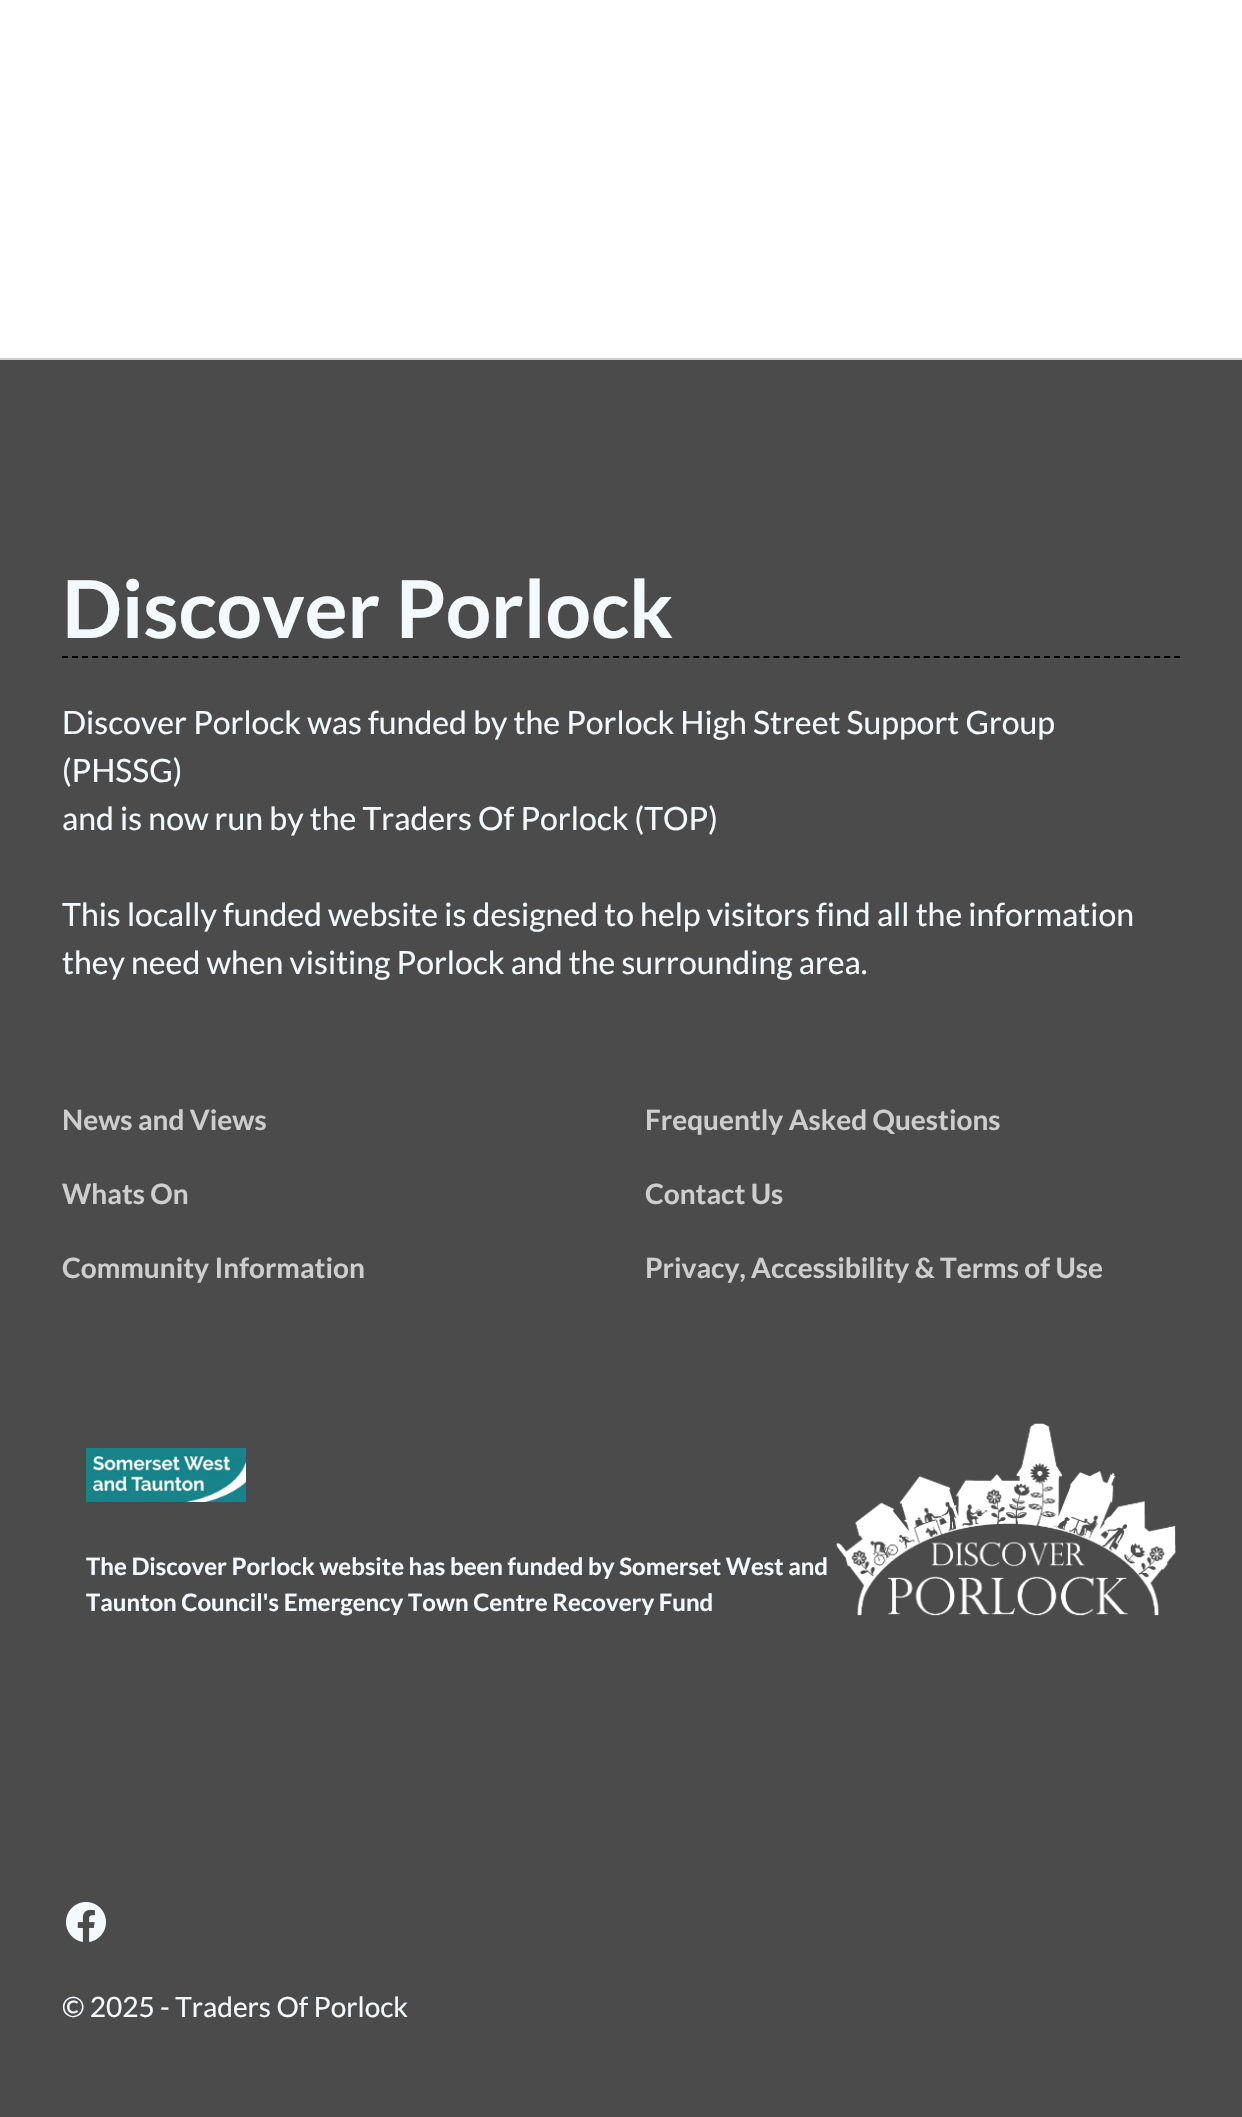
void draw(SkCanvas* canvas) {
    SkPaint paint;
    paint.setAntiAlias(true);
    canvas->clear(0xFFFFFFFF);
    paint.setColor(0xFFCECECE);
    canvas->drawRect(SkRect::MakeXYWH(0, 358, 1242, 2), paint);
    paint.setColor(0xFF4B4B4B);
    canvas->drawRect(SkRect::MakeXYWH(0, 360, 1242, 1757), paint);
    paint.setStyle(SkPaint::kStroke_Style);
    paint.setStrokeWidth(2);
    paint.setColor(0xFF000000);
    paint.setPathEffect(SkDashPathEffect::Make({{6, 4.02f}}, 0));
    canvas->drawPath(SkPathBuilder().moveTo(62, 657).lineTo(1180, 657).detach(), paint);
    paint.setPathEffect(nullptr);
    SkFont font1(fontMgr->matchFamilyStyle("Lato", SkFontStyle::Bold()), 80);
    font1.setSubpixel(true);
    paint.setStyle(SkPaint::kFill_Style);
    paint.setColor(0xFFF3F9FD);
    canvas->drawString("Discover Porlock", 62, 638, font1, paint);
    SkFont font2(fontMgr->matchFamilyStyle("Lato", SkFontStyle::Normal()), 32);
    font2.setSubpixel(true);
    canvas->drawString("Discover Porlock was funded by the Porlock High Street Support Group", 62, 734, font2, paint);
    canvas->drawString("(PHSSG)", 62, 782, font2, paint);
    canvas->drawString("and is now run by the Traders Of Porlock (TOP)", 62, 830, font2, paint);
    canvas->drawString("This locally funded website is designed to help visitors find all the information", 62, 926, font2, paint);
    canvas->drawString("they need when visiting Porlock and the surrounding area.", 62, 974, font2, paint);
    SkFont font3(fontMgr->matchFamilyStyle("Lato", SkFontStyle::Bold()), 28);
    font3.setSubpixel(true);
    paint.setColor(0xFFCECECE);
    canvas->drawString("News and Views", 62, 1130, font3, paint);
    canvas->drawString("Whats On", 62, 1204, font3, paint);
    canvas->drawString("Community Information", 62, 1278, font3, paint);
    canvas->drawString("Frequently Asked Questions", 645, 1130, font3, paint);
    canvas->drawString("Contact Us", 645, 1204, font3, paint);
    canvas->drawString("Privacy, Accessibility & Terms of Use", 645, 1278, font3, paint);
    canvas->drawImageRect(SkImages::DeferredFromEncodedData(SkData::MakeFromFileName("img1.png")), SkRect::MakeXYWH(86, 1448, 160, 54), SkSamplingOptions());
    SkFont font4(fontMgr->matchFamilyStyle("Lato", SkFontStyle::Bold()), 24);
    font4.setSubpixel(true);
    paint.setColor(0xFFF3F9FD);
    canvas->drawString("The Discover Porlock website has been funded by Somerset West and", 86, 1575, font4, paint);
    canvas->drawString("Taunton Council's Emergency Town Centre Recovery Fund", 86, 1611, font4, paint);
    canvas->drawImageRect(SkImages::DeferredFromEncodedData(SkData::MakeFromFileName("img2.png")), SkRect::MakeXYWH(836, 1423, 340, 193), SkSamplingOptions());
    canvas->drawImageRect(SkImages::DeferredFromEncodedData(SkData::MakeFromFileName("img3.png")), SkRect::MakeXYWH(66, 1902, 40, 40), SkSamplingOptions());
    SkFont font5(fontMgr->matchFamilyStyle("Lato", SkFontStyle::Normal()), 28);
    font5.setSubpixel(true);
    canvas->drawString("© 2025 - Traders Of Porlock", 62, 2017, font5, paint);
}
